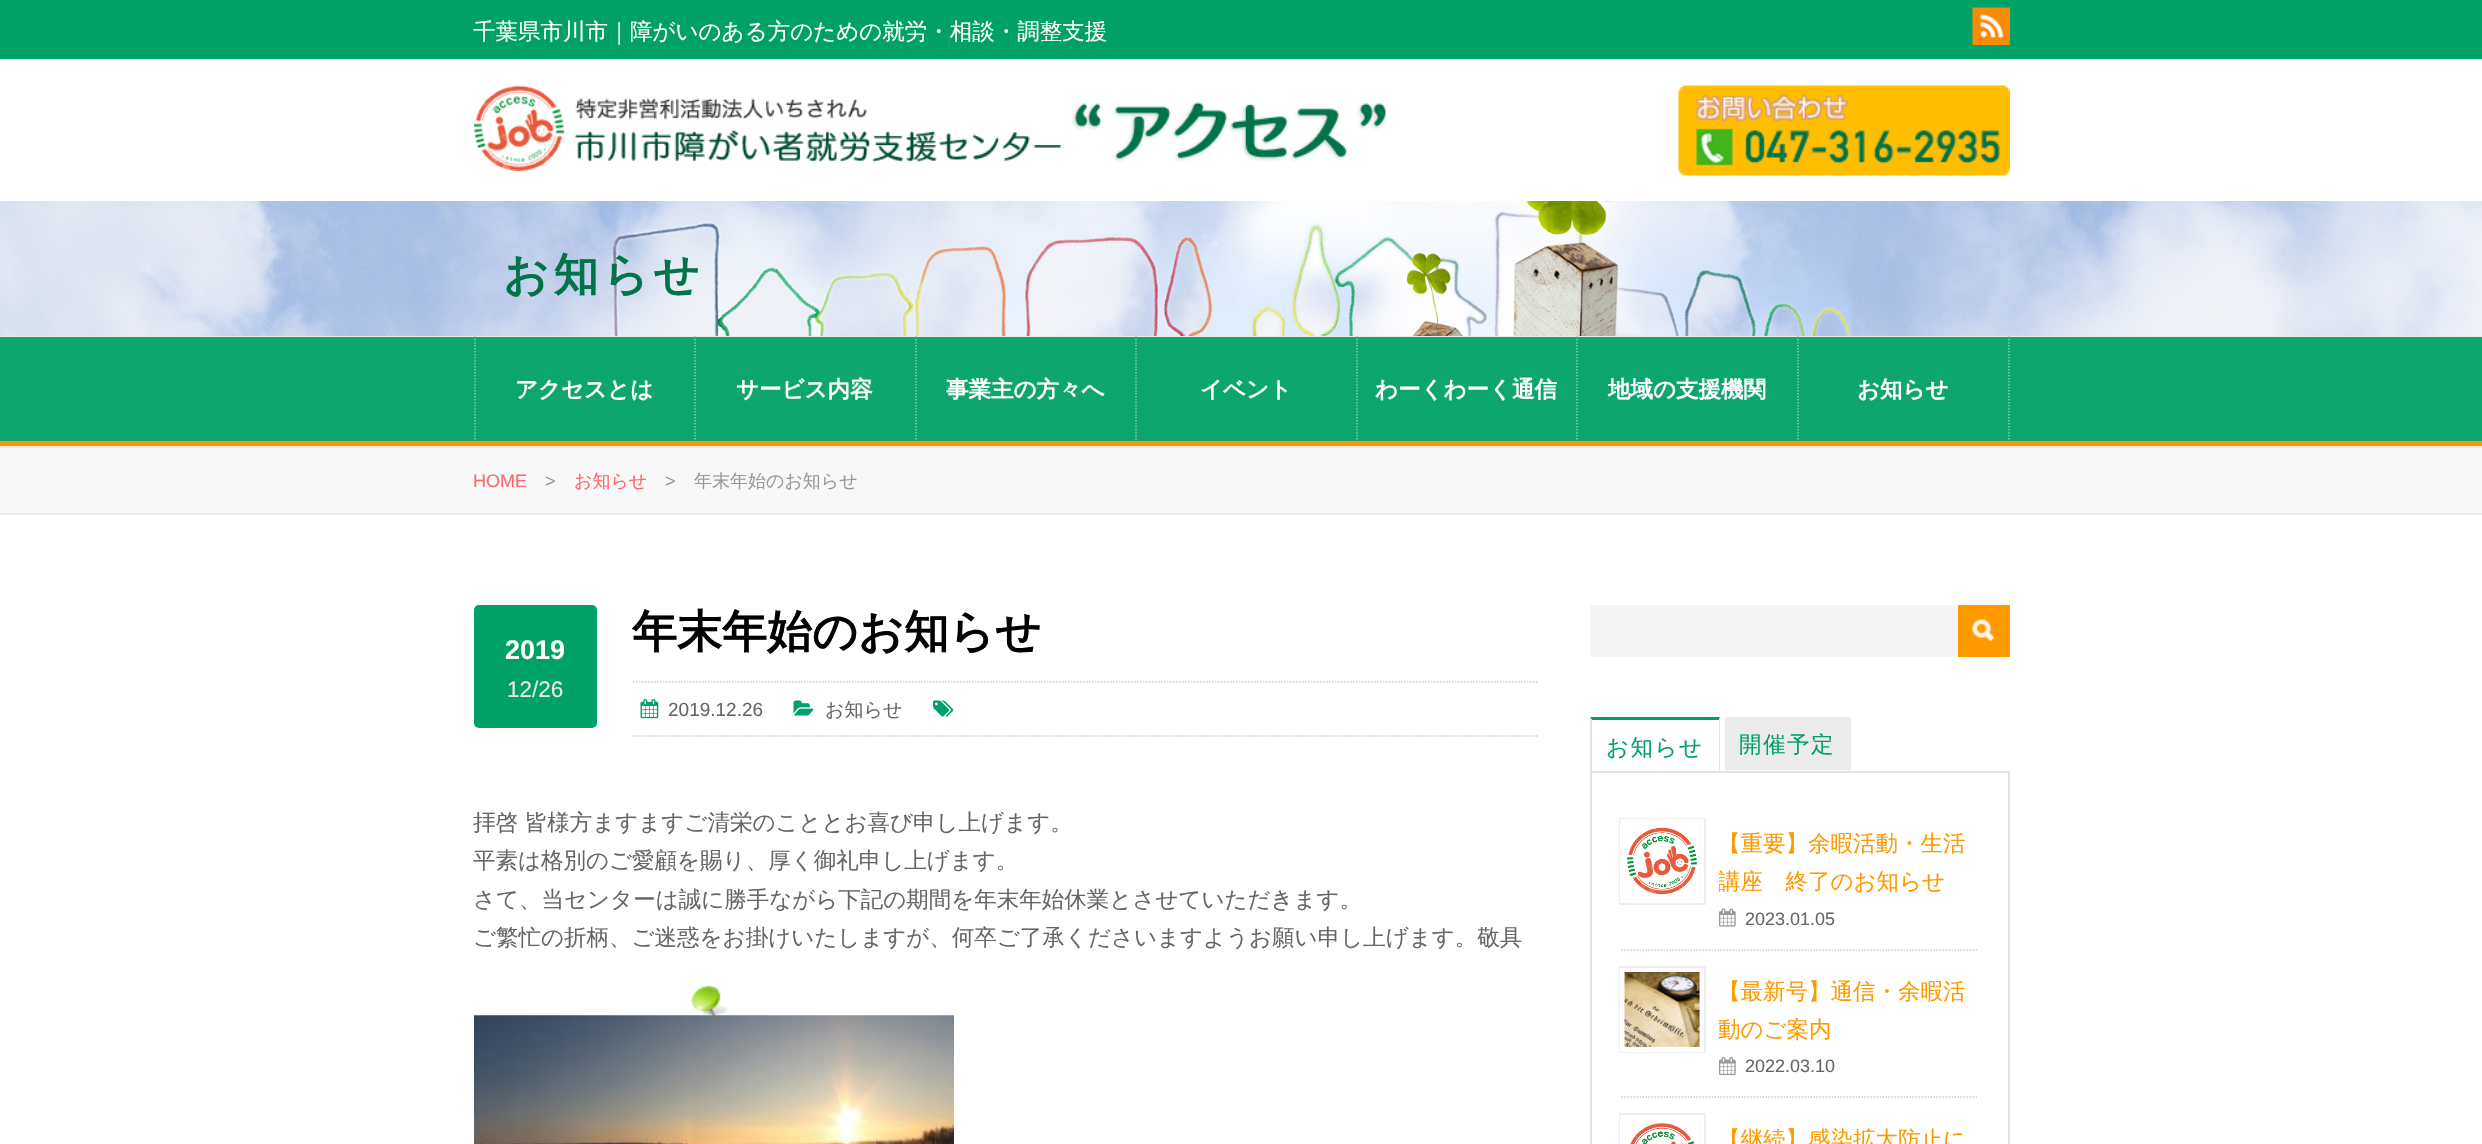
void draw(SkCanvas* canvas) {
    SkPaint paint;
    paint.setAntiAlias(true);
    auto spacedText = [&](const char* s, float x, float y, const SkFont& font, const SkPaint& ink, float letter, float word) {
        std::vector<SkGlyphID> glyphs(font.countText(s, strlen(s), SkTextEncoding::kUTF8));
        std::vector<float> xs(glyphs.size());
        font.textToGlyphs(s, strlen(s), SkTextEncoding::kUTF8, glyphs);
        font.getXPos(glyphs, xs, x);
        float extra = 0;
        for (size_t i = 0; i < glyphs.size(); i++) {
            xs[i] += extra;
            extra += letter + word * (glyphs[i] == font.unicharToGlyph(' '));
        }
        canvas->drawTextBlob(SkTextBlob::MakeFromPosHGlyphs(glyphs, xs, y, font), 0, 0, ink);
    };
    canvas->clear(0xFFFFFFFF);
    paint.setColor(0xFF00A166);
    canvas->drawRect(SkRect::MakeXYWH(0, 0, 2482, 59), paint);
    SkFont font1(fontMgr->matchFamilyStyle("WenQuanYi Zen Hei", SkFontStyle(500, SkFontStyle::kNormal_Width, SkFontStyle::kUpright_Slant)), 22.5f);
    font1.setSubpixel(true);
    paint.setColor(0xFFFFFFFF);
    canvas->drawString("千葉県市川市｜障がいのある方のための就労・相談・調整支援", 473, 39, font1, paint);
    canvas->drawImageRect(SkImages::DeferredFromEncodedData(SkData::MakeFromFileName("img1.png")), SkRect::MakeXYWH(1972, 7, 38, 38), SkSamplingOptions());
    canvas->drawImageRect(SkImages::DeferredFromEncodedData(SkData::MakeFromFileName("img2.png")), SkRect::MakeXYWH(474, 85, 913, 86), SkSamplingOptions());
    canvas->drawImageRect(SkImages::DeferredFromEncodedData(SkData::MakeFromFileName("img3.png")), SkRect::MakeXYWH(1678, 85, 332, 91), SkSamplingOptions());
    canvas->drawImageRect(SkImages::DeferredFromEncodedData(SkData::MakeFromFileName("img4.png")), SkRect::MakeXYWH(0, 201, 2482, 135), SkSamplingOptions());
    SkFont font2(fontMgr->matchFamilyStyle("WenQuanYi Zen Hei", SkFontStyle::Bold()), 45);
    font2.setSubpixel(true);
    paint.setColor(0xFF007349);
    spacedText("お知らせ", 503, 290, font2, paint, 4.5f, 0);
    paint.setColor(0xF200A166);
    canvas->drawRect(SkRect::MakeXYWH(0, 337, 2482, 104), paint);
    paint.setColor(0xFFEEEEEE);
    canvas->drawRect(SkRect::MakeXYWH(0, 336, 2482, 1), paint);
    paint.setColor(0xFFFF9900);
    canvas->drawRect(SkRect::MakeXYWH(0, 441, 2482, 5), paint);
    paint.setStyle(SkPaint::kStroke_Style);
    paint.setStrokeWidth(1.5f);
    paint.setColor(0xFF85CFB4);
    paint.setPathEffect(SkDashPathEffect::Make({{1.5f, 1.5f}}, 0));
    canvas->drawPath(SkPathBuilder().moveTo(475, 336).lineTo(475, 441).detach(), paint);
    paint.setPathEffect(nullptr);
    SkFont font3(fontMgr->matchFamilyStyle("WenQuanYi Zen Hei", SkFontStyle::Bold()), 22.5f);
    font3.setSubpixel(true);
    paint.setStyle(SkPaint::kFill_Style);
    paint.setColor(0xFFFFFFFF);
    canvas->drawString("アクセスとは", 515, 397, font3, paint);
    paint.setStyle(SkPaint::kStroke_Style);
    paint.setColor(0xFF85CFB4);
    paint.setPathEffect(SkDashPathEffect::Make({{1.5f, 1.5f}}, 0));
    canvas->drawPath(SkPathBuilder().moveTo(695, 336).lineTo(695, 441).detach(), paint);
    paint.setPathEffect(nullptr);
    paint.setStyle(SkPaint::kFill_Style);
    paint.setColor(0xFFFFFFFF);
    canvas->drawString("サービス内容", 736, 397, font3, paint);
    paint.setStyle(SkPaint::kStroke_Style);
    paint.setColor(0xFF85CFB4);
    paint.setPathEffect(SkDashPathEffect::Make({{1.5f, 1.5f}}, 0));
    canvas->drawPath(SkPathBuilder().moveTo(916, 336).lineTo(916, 441).detach(), paint);
    paint.setPathEffect(nullptr);
    paint.setStyle(SkPaint::kFill_Style);
    paint.setColor(0xFFFFFFFF);
    canvas->drawString("事業主の方々へ", 946, 397, font3, paint);
    paint.setStyle(SkPaint::kStroke_Style);
    paint.setColor(0xFF85CFB4);
    paint.setPathEffect(SkDashPathEffect::Make({{1.5f, 1.5f}}, 0));
    canvas->drawPath(SkPathBuilder().moveTo(1136, 336).lineTo(1136, 441).detach(), paint);
    paint.setPathEffect(nullptr);
    paint.setStyle(SkPaint::kFill_Style);
    paint.setColor(0xFFFFFFFF);
    canvas->drawString("イベント", 1200, 397, font3, paint);
    paint.setStyle(SkPaint::kStroke_Style);
    paint.setColor(0xFF85CFB4);
    paint.setPathEffect(SkDashPathEffect::Make({{1.5f, 1.5f}}, 0));
    canvas->drawPath(SkPathBuilder().moveTo(1357, 336).lineTo(1357, 441).detach(), paint);
    paint.setPathEffect(nullptr);
    paint.setStyle(SkPaint::kFill_Style);
    paint.setColor(0xFFFFFFFF);
    canvas->drawString("わーくわーく通信", 1375, 397, font3, paint);
    paint.setStyle(SkPaint::kStroke_Style);
    paint.setColor(0xFF85CFB4);
    paint.setPathEffect(SkDashPathEffect::Make({{1.5f, 1.5f}}, 0));
    canvas->drawPath(SkPathBuilder().moveTo(1577, 336).lineTo(1577, 441).detach(), paint);
    paint.setPathEffect(nullptr);
    paint.setStyle(SkPaint::kFill_Style);
    paint.setColor(0xFFFFFFFF);
    canvas->drawString("地域の支援機関", 1608, 397, font3, paint);
    paint.setStyle(SkPaint::kStroke_Style);
    paint.setColor(0xFF85CFB4);
    paint.setPathEffect(SkDashPathEffect::Make({{1.5f, 1.5f}}, 0));
    canvas->drawPath(SkPathBuilder().moveTo(2009, 336).lineTo(2009, 441).detach(), paint);
    paint.setPathEffect(nullptr);
    paint.setPathEffect(SkDashPathEffect::Make({{1.5f, 1.5f}}, 0));
    canvas->drawPath(SkPathBuilder().moveTo(1798, 336).lineTo(1798, 441).detach(), paint);
    paint.setPathEffect(nullptr);
    paint.setStyle(SkPaint::kFill_Style);
    paint.setColor(0xFFFFFFFF);
    canvas->drawString("お知らせ", 1857, 397, font3, paint);
    paint.setColor(0xFFF8F8F8);
    canvas->drawRect(SkRect::MakeXYWH(0, 448, 2482, 65), paint);
    paint.setColor(0xFFEDEDED);
    canvas->drawRect(SkRect::MakeXYWH(0, 446, 2482, 2), paint);
    canvas->drawRect(SkRect::MakeXYWH(0, 513, 2482, 2), paint);
    SkFont font4(fontMgr->matchFamilyStyle("Liberation Sans", SkFontStyle::Normal()), 18);
    font4.setSubpixel(true);
    paint.setColor(0xFFFF6666);
    canvas->drawString("HOME", 473, 487, font4, paint);
    paint.setColor(0xFF999999);
    canvas->drawString(">", 545, 487, font4, paint);
    SkFont font5(fontMgr->matchFamilyStyle("WenQuanYi Zen Hei", SkFontStyle(500, SkFontStyle::kNormal_Width, SkFontStyle::kUpright_Slant)), 18);
    font5.setSubpixel(true);
    paint.setColor(0xFFFF6666);
    canvas->drawString("お知らせ", 574, 487, font5, paint);
    paint.setColor(0xFF999999);
    canvas->drawString(">", 665, 487, font4, paint);
    canvas->drawString("年末年始のお知らせ", 694, 487, font5, paint);
    paint.setColor(0xFF000000);
    canvas->drawString("年末年始のお知らせ", 632, 647, font2, paint);
    paint.setColor(0xFF00A166);
    canvas->drawRoundRect(SkRect::MakeXYWH(474, 605, 123, 123), 5, 5, paint);
    SkFont font6(fontMgr->matchFamilyStyle("Liberation Sans", SkFontStyle::Bold()), 27);
    font6.setSubpixel(true);
    paint.setColor(0xFFFFFFFF);
    canvas->drawString("2019", 505, 659, font6, paint);
    SkFont font7(fontMgr->matchFamilyStyle("Liberation Sans", SkFontStyle::Normal()), 22.5f);
    font7.setSubpixel(true);
    paint.setColor(0xFFE9E9E9);
    canvas->drawString("12/26", 507, 697, font7, paint);
    paint.setStyle(SkPaint::kStroke_Style);
    paint.setColor(0xFFCCCCCC);
    paint.setPathEffect(SkDashPathEffect::Make({{1.5f, 1.5f}}, 0));
    canvas->drawPath(SkPathBuilder().moveTo(633, 682).lineTo(1539, 682).detach(), paint);
    paint.setPathEffect(nullptr);
    paint.setPathEffect(SkDashPathEffect::Make({{1.5f, 1.5f}}, 0));
    canvas->drawPath(SkPathBuilder().moveTo(633, 736).lineTo(1539, 736).detach(), paint);
    paint.setPathEffect(nullptr);
    canvas->drawImageRect(SkImages::DeferredFromEncodedData(SkData::MakeFromFileName("img5.png")), SkRect::MakeXYWH(640, 699, 19, 20), SkSamplingOptions());
    SkFont font8(fontMgr->matchFamilyStyle("Liberation Sans", SkFontStyle::Normal()), 19);
    font8.setSubpixel(true);
    paint.setStyle(SkPaint::kFill_Style);
    paint.setColor(0xFF666666);
    canvas->drawString("2019.12.26", 668, 716, font8, paint);
    canvas->drawImageRect(SkImages::DeferredFromEncodedData(SkData::MakeFromFileName("img6.png")), SkRect::MakeXYWH(793, 700, 21, 16), SkSamplingOptions());
    SkFont font9(fontMgr->matchFamilyStyle("WenQuanYi Zen Hei", SkFontStyle(500, SkFontStyle::kNormal_Width, SkFontStyle::kUpright_Slant)), 19);
    font9.setSubpixel(true);
    canvas->drawString("お知らせ", 825, 716, font9, paint);
    canvas->drawImageRect(SkImages::DeferredFromEncodedData(SkData::MakeFromFileName("img7.png")), SkRect::MakeXYWH(933, 700, 21, 17), SkSamplingOptions());
    canvas->drawString("拝啓 皆様方ますますご清栄のこととお喜び申し上げます。", 473, 830, font1, paint);
    canvas->drawString("平素は格別のご愛顧を賜り、厚く御礼申し上げます。", 473, 868, font1, paint);
    canvas->drawString("さて、当センターは誠に勝手ながら下記の期間を年末年始休業とさせていただきます。", 473, 907, font1, paint);
    canvas->drawString("ご繁忙の折柄、ご迷惑をお掛けいたしますが、何卒ご了承くださいますようお願い申し上げます。敬具", 473, 945, font1, paint);
    canvas->drawImageRect(SkImages::DeferredFromEncodedData(SkData::MakeFromFileName("img8.png")), SkRect::MakeXYWH(474, 985, 480, 159), SkSamplingOptions());
    canvas->drawImageRect(SkImages::DeferredFromEncodedData(SkData::MakeFromFileName("img9.png")), SkRect::MakeXYWH(474, 1015, 480, 1), SkSamplingOptions());
    paint.setColor(0xFFF5F5F5);
    canvas->drawRect(SkRect::MakeXYWH(1590, 605, 368, 52), paint);
    paint.setColor(0xFFFF9900);
    canvas->drawRect(SkRect::MakeXYWH(1958, 605, 52, 52), paint);
    canvas->drawImageRect(SkImages::DeferredFromEncodedData(SkData::MakeFromFileName("img10.png")), SkRect::MakeXYWH(1972, 619, 22, 22), SkSamplingOptions());
    paint.setColor(0xFF00A166);
    canvas->drawPath(SkPathBuilder().moveTo(1590, 717).lineTo(1720, 717).lineTo(1719, 720).lineTo(1592, 720).close().detach(), paint);
    paint.setColor(0xFFE2E2E2);
    canvas->drawPath(SkPathBuilder().moveTo(1720, 717).lineTo(1720, 772).lineTo(1719, 772).lineTo(1719, 720).close().detach(), paint);
    canvas->drawPath(SkPathBuilder().moveTo(1590, 772).lineTo(1590, 717).lineTo(1592, 720).lineTo(1592, 772).close().detach(), paint);
    paint.setColor(0xFF00A166);
    spacedText("お知らせ", 1606, 755, font1, paint, 1.5f, 0);
    paint.setColor(0xFFEBEBEB);
    canvas->drawRect(SkRect::MakeXYWH(1725, 717, 126, 53), paint);
    paint.setColor(0xFF00A166);
    spacedText("開催予定", 1739, 752, font1, paint, 1.5f, 0);
    paint.setStyle(SkPaint::kStroke_Style);
    paint.setStrokeWidth(2);
    paint.setColor(0xFFE2E2E2);
    canvas->drawRect(SkRect::MakeXYWH(1591, 772, 418, 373), paint);
    paint.setStrokeWidth(1.5f);
    paint.setColor(0xFFCCCCCC);
    paint.setPathEffect(SkDashPathEffect::Make({{1.5f, 1.5f}}, 0));
    canvas->drawPath(SkPathBuilder().moveTo(1621.5f, 950).lineTo(1978.5f, 950).detach(), paint);
    paint.setPathEffect(nullptr);
    paint.setStrokeWidth(6);
    paint.setColor(0xFFEEEEEE);
    canvas->drawRect(SkRect::MakeXYWH(1622, 821, 81, 81), paint);
    paint.setStrokeWidth(5);
    paint.setColor(0xFFFFFFFF);
    canvas->drawRect(SkRect::MakeXYWH(1622.5f, 821.5f, 79, 79), paint);
    paint.setStyle(SkPaint::kFill_Style);
    paint.setColor(0xFFEEEEEE);
    canvas->drawRect(SkRect::MakeXYWH(1625, 824, 75, 75), paint);
    canvas->drawImageRect(SkImages::DeferredFromEncodedData(SkData::MakeFromFileName("img11.png")), SkRect::MakeXYWH(1625, 824, 75, 75), SkSamplingOptions());
    paint.setColor(0xFFFF9900);
    canvas->drawString("【重要】余暇活動・生活", 1718, 851, font1, paint);
    canvas->save();
    canvas->clipRect(SkRect::MakeXYWH(1719, 824, 260, 115));
    canvas->drawString("講座　終了のお知らせ", 1718, 889, font1, paint);
    canvas->restore();
    canvas->drawImageRect(SkImages::DeferredFromEncodedData(SkData::MakeFromFileName("img12.png")), SkRect::MakeXYWH(1719, 908, 17, 19), SkSamplingOptions());
    paint.setColor(0xFF666666);
    canvas->drawString("2023.01.05", 1745, 925, font4, paint);
    paint.setStyle(SkPaint::kStroke_Style);
    paint.setStrokeWidth(1.5f);
    paint.setColor(0xFFCCCCCC);
    paint.setPathEffect(SkDashPathEffect::Make({{1.5f, 1.5f}}, 0));
    canvas->drawPath(SkPathBuilder().moveTo(1621.5f, 1097).lineTo(1978.5f, 1097).detach(), paint);
    paint.setPathEffect(nullptr);
    paint.setStrokeWidth(6);
    paint.setColor(0xFFEEEEEE);
    canvas->drawRect(SkRect::MakeXYWH(1622, 969, 81, 81), paint);
    paint.setStrokeWidth(5);
    paint.setColor(0xFFFFFFFF);
    canvas->drawRect(SkRect::MakeXYWH(1622.5f, 970.5f, 79, 79), paint);
    paint.setStyle(SkPaint::kFill_Style);
    paint.setColor(0xFFEEEEEE);
    canvas->drawRect(SkRect::MakeXYWH(1699, 972, 1, 75), paint);
    canvas->drawImageRect(SkImages::DeferredFromEncodedData(SkData::MakeFromFileName("img13.png")), SkRect::MakeXYWH(1624, 972, 76, 75), SkSamplingOptions());
    paint.setColor(0xFFFF9900);
    canvas->drawString("【最新号】通信・余暇活", 1718, 999, font1, paint);
    canvas->drawString("動のご案内", 1718, 1037, font1, paint);
    canvas->drawImageRect(SkImages::DeferredFromEncodedData(SkData::MakeFromFileName("img14.png")), SkRect::MakeXYWH(1719, 1057, 17, 19), SkSamplingOptions());
    paint.setColor(0xFF666666);
    canvas->drawString("2022.03.10", 1745, 1072, font4, paint);
    paint.setStyle(SkPaint::kStroke_Style);
    paint.setStrokeWidth(6);
    paint.setColor(0xFFEEEEEE);
    canvas->drawRect(SkRect::MakeXYWH(1622, 1116, 81, 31), paint);
    paint.setStrokeWidth(5);
    paint.setColor(0xFFFFFFFF);
    canvas->drawRect(SkRect::MakeXYWH(1622.5f, 1117.5f, 79, 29), paint);
    paint.setStyle(SkPaint::kFill_Style);
    paint.setColor(0xFFEEEEEE);
    canvas->drawRect(SkRect::MakeXYWH(1699, 1119, 1, 25), paint);
    canvas->drawImageRect(SkImages::DeferredFromEncodedData(SkData::MakeFromFileName("img15.png")), SkRect::MakeXYWH(1625, 1119, 75, 25), SkSamplingOptions());
    paint.setColor(0xFFFF9900);
    canvas->drawString("【継続】感染拡大防止に", 1718, 1147, font1, paint);
}
